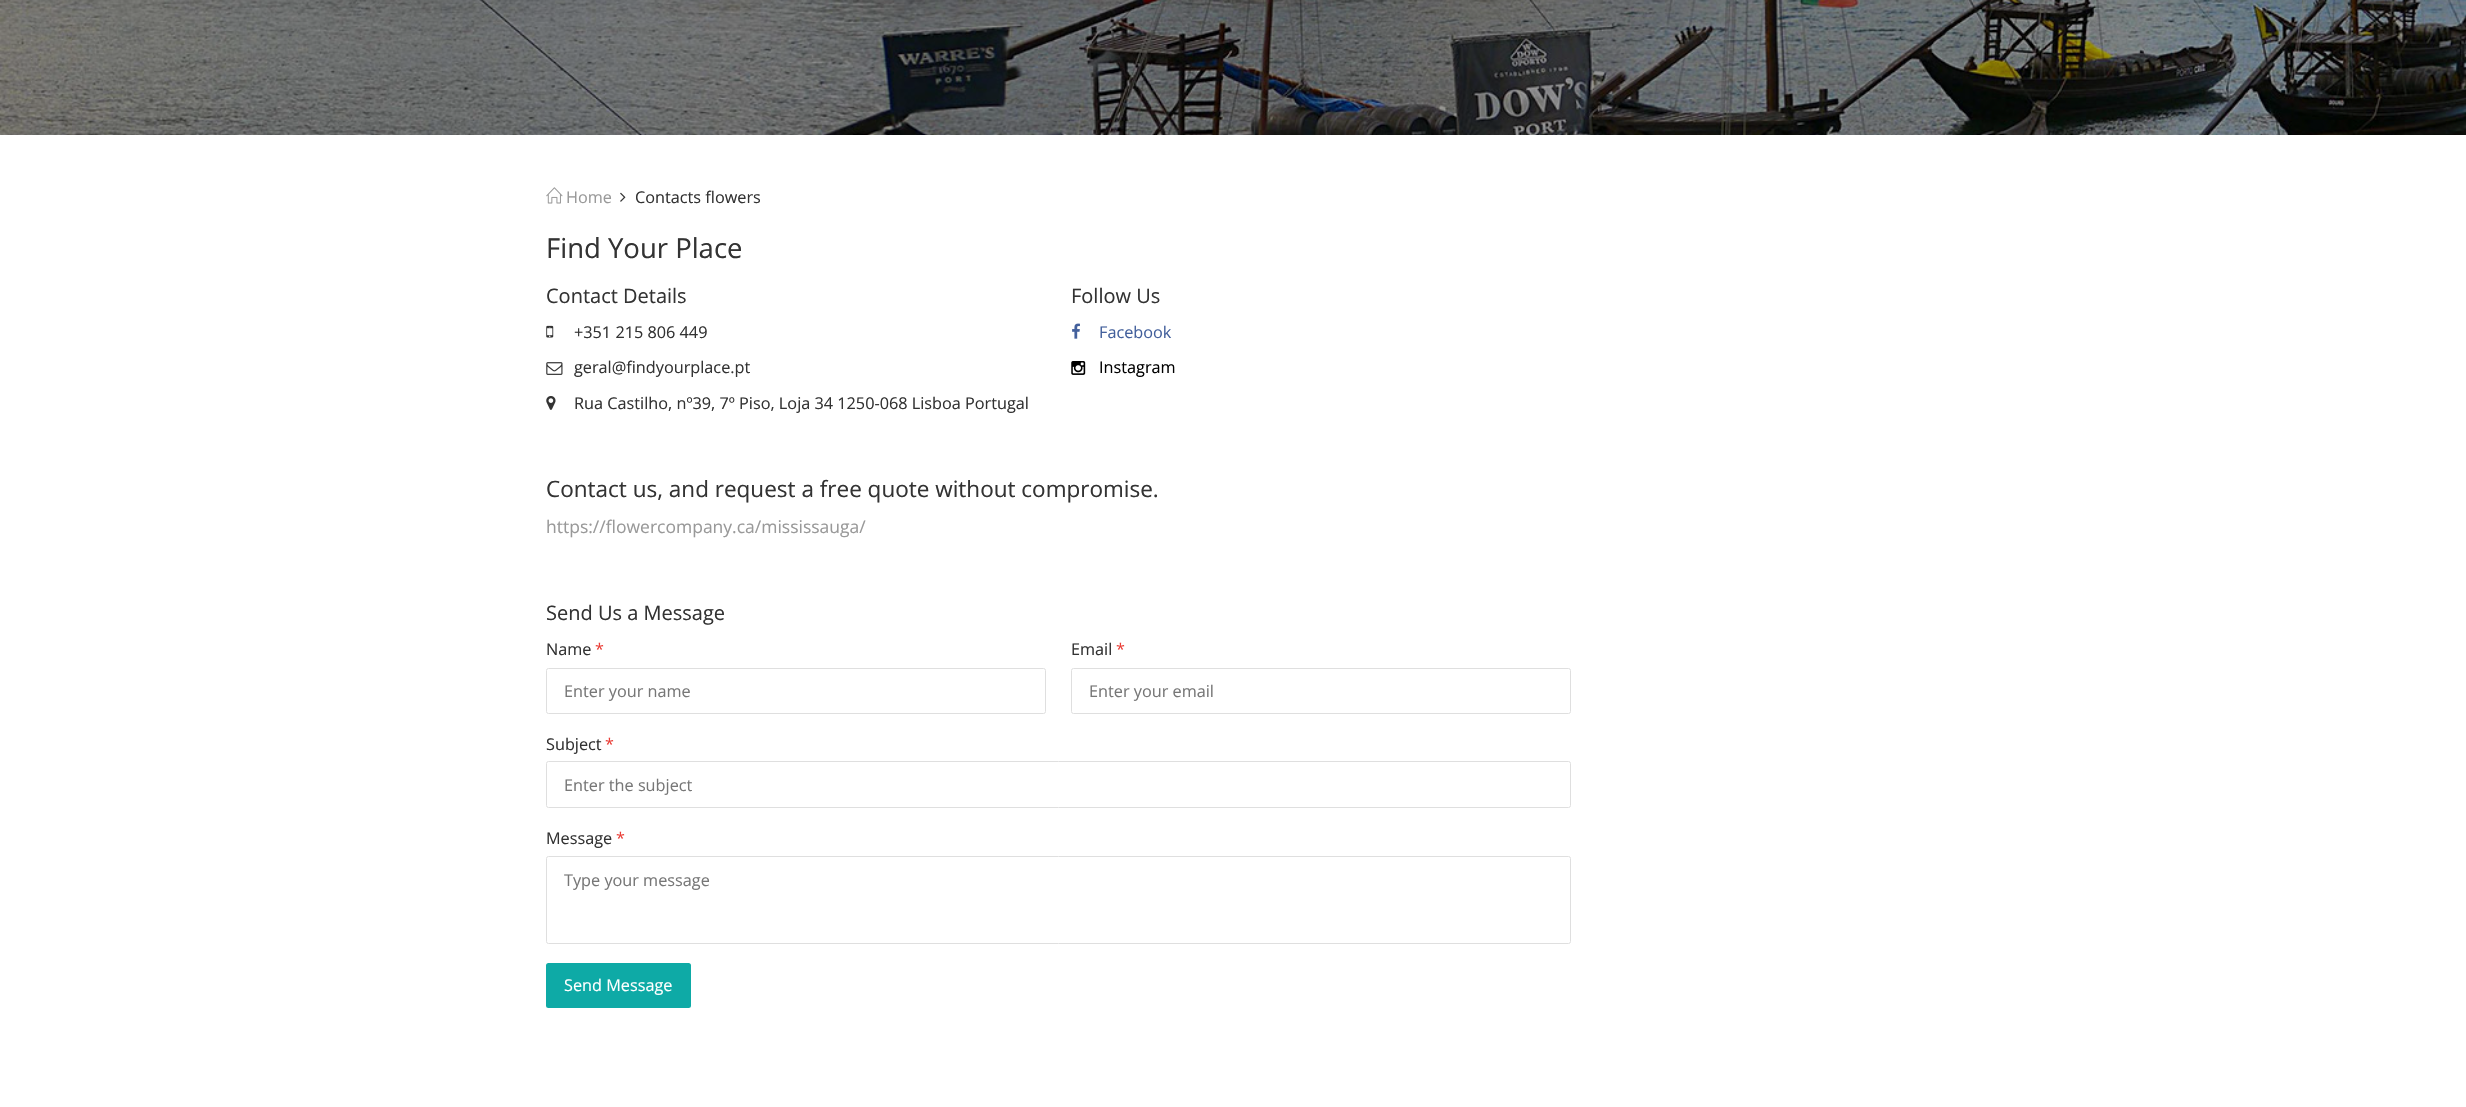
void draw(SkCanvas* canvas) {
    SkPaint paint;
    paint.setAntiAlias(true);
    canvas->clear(0xFFFFFFFF);
    canvas->drawImageRect(SkImages::DeferredFromEncodedData(SkData::MakeFromFileName("img1.png")), SkRect::MakeXYWH(0, 0, 2466, 135), SkSamplingOptions());
    canvas->drawImageRect(SkImages::DeferredFromEncodedData(SkData::MakeFromFileName("img2.png")), SkRect::MakeXYWH(546, 187, 17, 17), SkSamplingOptions());
    SkFont font1(fontMgr->matchFamilyStyle("Open Sans", SkFontStyle::Normal()), 16.25f);
    font1.setSubpixel(true);
    paint.setColor(0xFF999999);
    canvas->drawString("Home", 566, 203, font1, paint);
    canvas->drawImageRect(SkImages::DeferredFromEncodedData(SkData::MakeFromFileName("img3.png")), SkRect::MakeXYWH(620, 192, 6, 10), SkSamplingOptions());
    paint.setColor(0xFF333333);
    canvas->drawString("Contacts flowers", 635, 203, font1, paint);
    SkFont font2(fontMgr->matchFamilyStyle("Open Sans", SkFontStyle::Normal()), 27.5f);
    font2.setSubpixel(true);
    canvas->drawString("Find Your Place", 546, 258, font2, paint);
    SkFont font3(fontMgr->matchFamilyStyle("Open Sans", SkFontStyle::Normal()), 20);
    font3.setSubpixel(true);
    canvas->drawString("Contact Details", 546, 303, font3, paint);
    canvas->drawImageRect(SkImages::DeferredFromEncodedData(SkData::MakeFromFileName("img4.png")), SkRect::MakeXYWH(546, 325, 8, 13), SkSamplingOptions());
    canvas->drawString("+351 215 806 449", 574, 338, font1, paint);
    canvas->drawImageRect(SkImages::DeferredFromEncodedData(SkData::MakeFromFileName("img5.png")), SkRect::MakeXYWH(546, 362, 17, 13), SkSamplingOptions());
    canvas->drawString("geral@findyourplace.pt", 574, 373, font1, paint);
    canvas->drawImageRect(SkImages::DeferredFromEncodedData(SkData::MakeFromFileName("img6.png")), SkRect::MakeXYWH(546, 396, 10, 14), SkSamplingOptions());
    canvas->drawString("Rua Castilho, nº39, 7º Piso, Loja 34 1250-068 Lisboa Portugal", 574, 409, font1, paint);
    canvas->drawString("Follow Us", 1071, 303, font3, paint);
    canvas->drawImageRect(SkImages::DeferredFromEncodedData(SkData::MakeFromFileName("img7.png")), SkRect::MakeXYWH(1072, 323, 8, 16), SkSamplingOptions());
    paint.setColor(0xFF43609C);
    canvas->drawString("Facebook", 1099, 338, font1, paint);
    canvas->drawImageRect(SkImages::DeferredFromEncodedData(SkData::MakeFromFileName("img8.png")), SkRect::MakeXYWH(1071, 361, 15, 14), SkSamplingOptions());
    paint.setColor(0xFF000000);
    canvas->drawString("Instagram", 1099, 373, font1, paint);
    SkFont font4(fontMgr->matchFamilyStyle("Open Sans", SkFontStyle::Normal()), 22.5f);
    font4.setSubpixel(true);
    paint.setColor(0xFF333333);
    canvas->drawString("Contact us, and request a free quote without compromise.", 546, 497, font4, paint);
    SkFont font5(fontMgr->matchFamilyStyle("Open Sans", SkFontStyle::Normal()), 17.5f);
    font5.setSubpixel(true);
    paint.setColor(0xFF999999);
    canvas->drawString("https://flowercompany.ca/mississauga/", 546, 533, font5, paint);
    paint.setColor(0xFF333333);
    canvas->drawString("Send Us a Message", 546, 620, font3, paint);
    canvas->drawString("Name", 546, 655, font1, paint);
    paint.setColor(0xFFEA3D36);
    canvas->drawString("*", 595, 655, font1, paint);
    paint.setStyle(SkPaint::kStroke_Style);
    paint.setStrokeWidth(1);
    paint.setColor(0xFFDFDFDF);
    canvas->drawRoundRect(SkRect::MakeXYWH(546.5f, 668.5f, 499, 45), 2, 2, paint);
    paint.setStyle(SkPaint::kFill_Style);
    paint.setColor(0xFF777777);
    canvas->drawString("Enter your name", 564, 697, font1, paint);
    paint.setColor(0xFF333333);
    canvas->drawString("Email", 1071, 655, font1, paint);
    paint.setColor(0xFFEA3D36);
    canvas->drawString("*", 1116, 655, font1, paint);
    paint.setStyle(SkPaint::kStroke_Style);
    paint.setColor(0xFFDFDFDF);
    canvas->drawRoundRect(SkRect::MakeXYWH(1071.5f, 668.5f, 499, 45), 2, 2, paint);
    paint.setStyle(SkPaint::kFill_Style);
    paint.setColor(0xFF777777);
    canvas->drawString("Enter your email", 1089, 697, font1, paint);
    paint.setColor(0xFF333333);
    canvas->drawString("Subject", 546, 750, font1, paint);
    paint.setColor(0xFFEA3D36);
    canvas->drawString("*", 605, 750, font1, paint);
    paint.setStyle(SkPaint::kStroke_Style);
    paint.setColor(0xFFDFDFDF);
    canvas->drawRoundRect(SkRect::MakeXYWH(546.5f, 761.5f, 1024, 46), 2, 2, paint);
    paint.setStyle(SkPaint::kFill_Style);
    paint.setColor(0xFF777777);
    canvas->drawString("Enter the subject", 564, 791, font1, paint);
    paint.setColor(0xFF333333);
    canvas->drawString("Message", 546, 844, font1, paint);
    paint.setColor(0xFFEA3D36);
    canvas->drawString("*", 616, 844, font1, paint);
    paint.setStyle(SkPaint::kStroke_Style);
    paint.setColor(0xFFDFDFDF);
    canvas->drawRoundRect(SkRect::MakeXYWH(546.5f, 856.5f, 1024, 87), 2, 2, paint);
    paint.setStyle(SkPaint::kFill_Style);
    paint.setColor(0xFF777777);
    canvas->drawString("Type your message", 564, 886, font1, paint);
    paint.setColor(0xFF0EAAA6);
    canvas->drawRoundRect(SkRect::MakeXYWH(546, 963, 145, 45), 2.5f, 2.5f, paint);
    paint.setColor(0xFFFFFFFF);
    canvas->drawString("Send Message", 564, 991, font1, paint);
}
